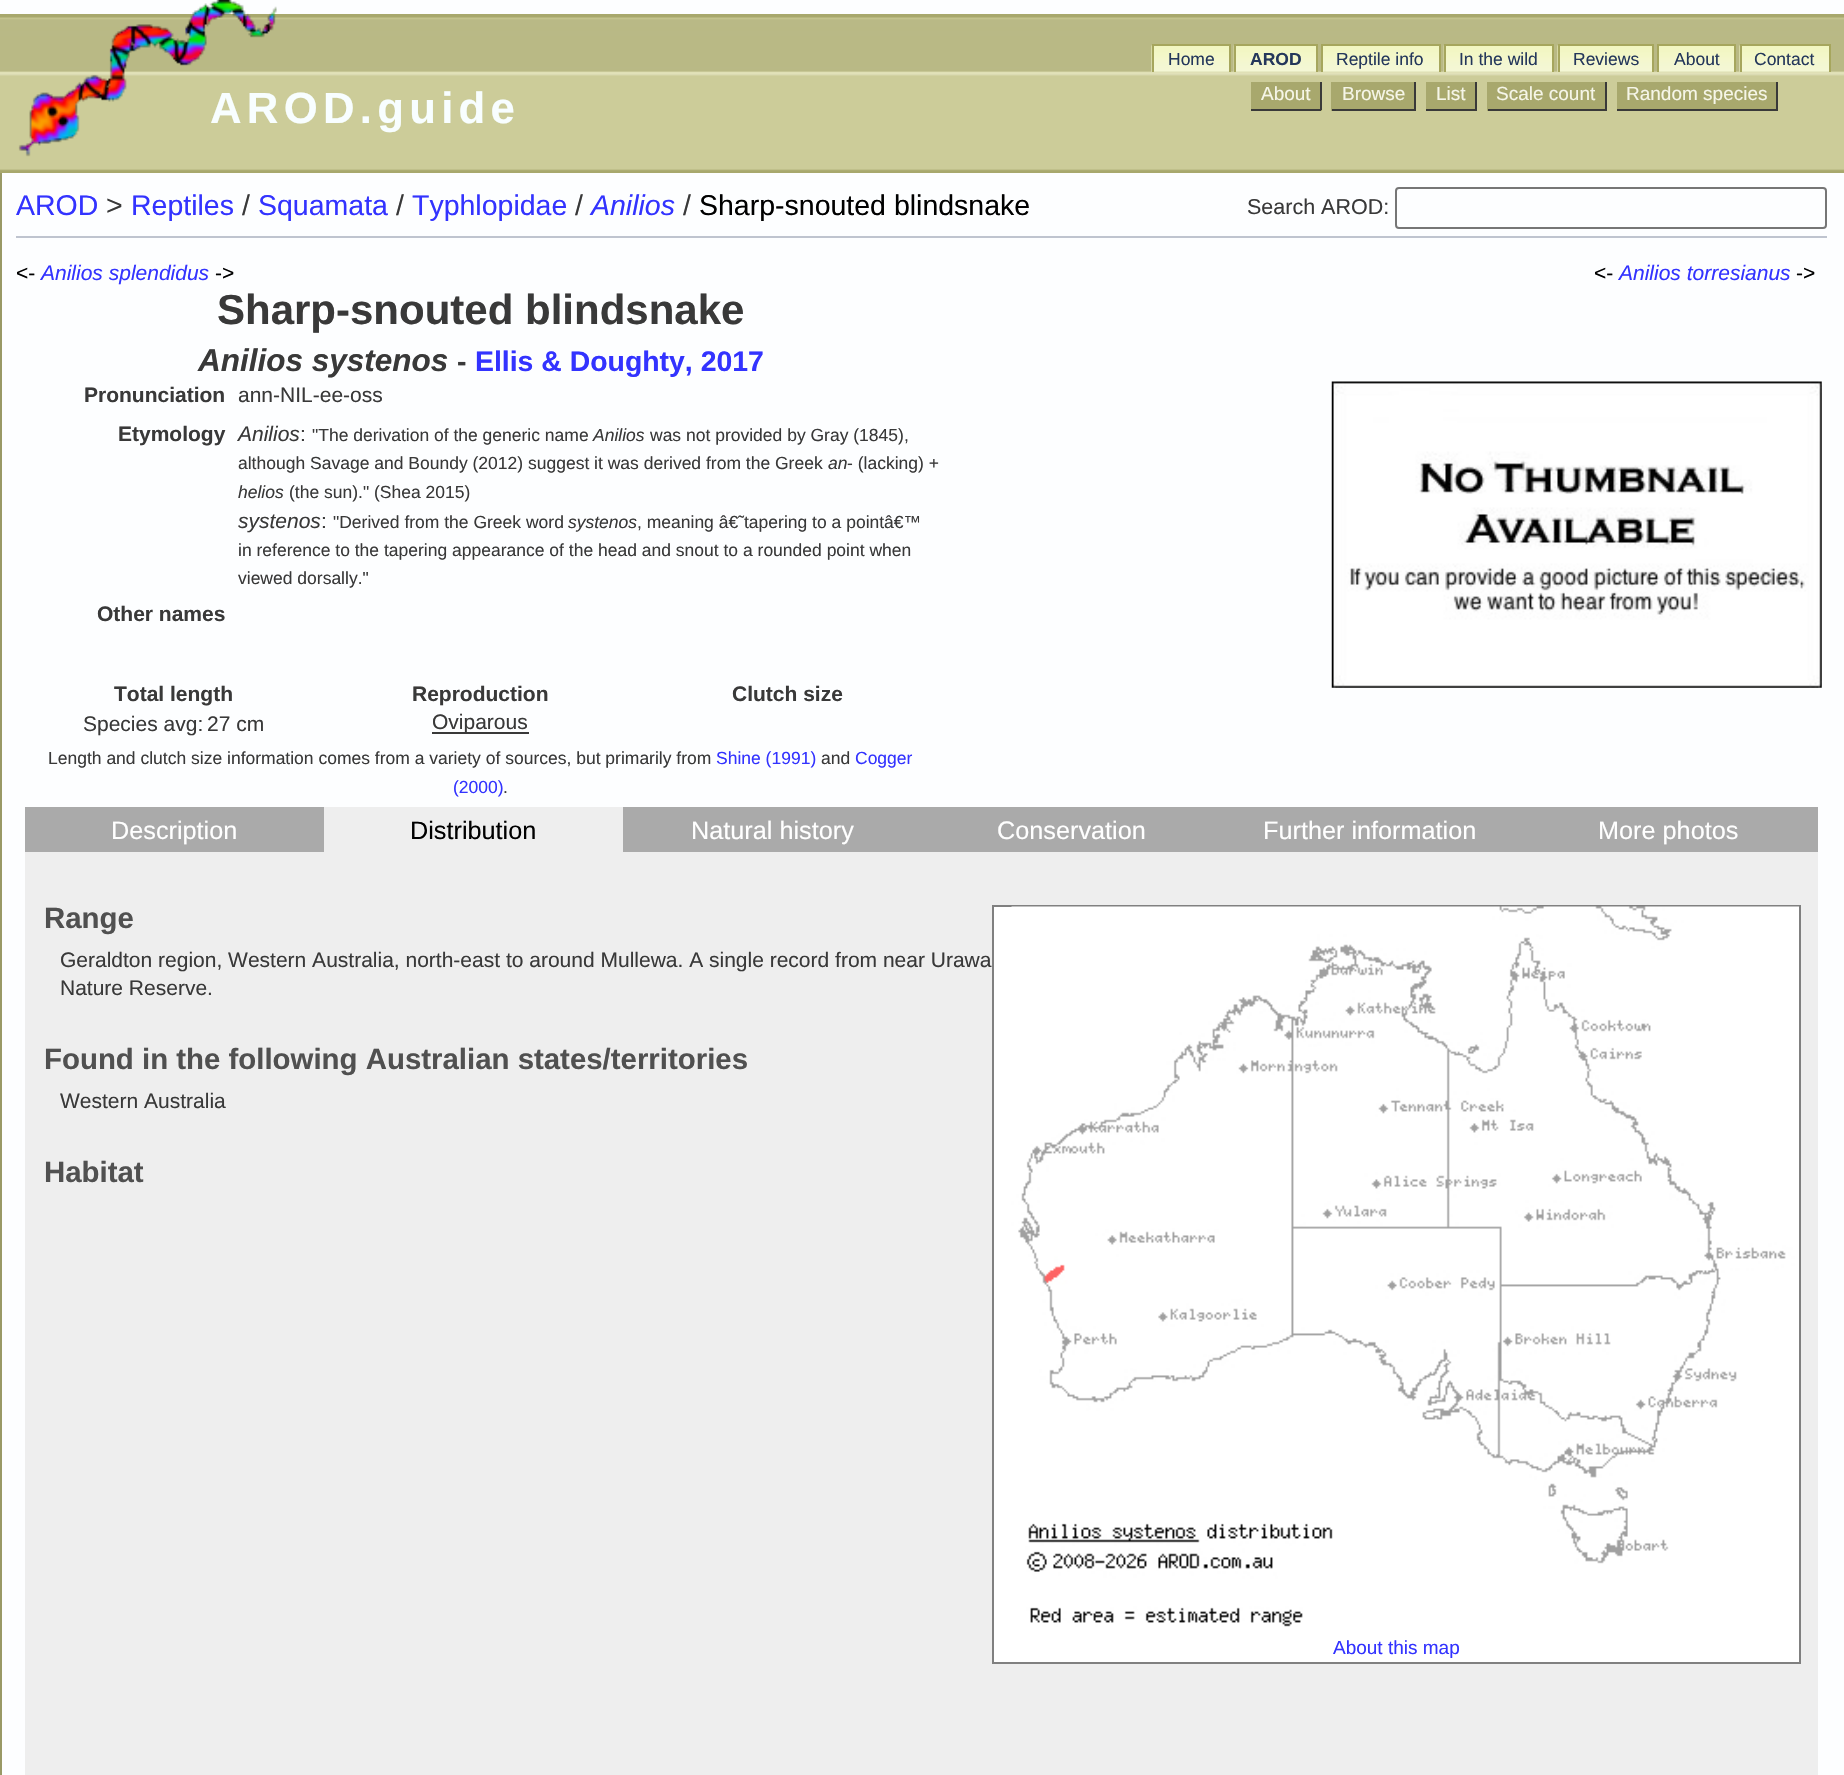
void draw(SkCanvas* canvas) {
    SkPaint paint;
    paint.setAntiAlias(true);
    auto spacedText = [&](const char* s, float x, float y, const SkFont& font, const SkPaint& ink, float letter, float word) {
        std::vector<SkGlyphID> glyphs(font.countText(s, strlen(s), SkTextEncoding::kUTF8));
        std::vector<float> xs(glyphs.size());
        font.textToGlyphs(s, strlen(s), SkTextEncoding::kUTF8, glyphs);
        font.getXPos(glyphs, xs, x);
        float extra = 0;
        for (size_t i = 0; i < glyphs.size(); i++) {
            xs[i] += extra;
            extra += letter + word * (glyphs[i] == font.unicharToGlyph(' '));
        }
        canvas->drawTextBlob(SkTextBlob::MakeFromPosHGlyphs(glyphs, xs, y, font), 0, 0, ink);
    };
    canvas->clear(0xFFFDFEFF);
    canvas->drawImageRect(SkImages::DeferredFromEncodedData(SkData::MakeFromFileName("img1.png")), SkRect::MakeXYWH(0, 14, 1844, 159), SkSamplingOptions());
    canvas->drawImageRect(SkImages::DeferredFromEncodedData(SkData::MakeFromFileName("img2.png")), SkRect::MakeXYWH(1151, 45, 78, 27), SkSamplingOptions());
    paint.setColor(0xFFA6A65D);
    canvas->drawRect(SkRect::MakeXYWH(1152, 44, 78, 2), paint);
    canvas->drawRect(SkRect::MakeXYWH(1229, 44, 2, 28), paint);
    canvas->drawRect(SkRect::MakeXYWH(1152, 44, 2, 28), paint);
    SkFont font1(fontMgr->matchFamilyStyle("Liberation Sans", SkFontStyle::Normal()), 17.5f);
    font1.setSubpixel(true);
    paint.setColor(0xFF24375B);
    canvas->drawString("Home", 1168, 65, font1, paint);
    canvas->drawImageRect(SkImages::DeferredFromEncodedData(SkData::MakeFromFileName("img3.png")), SkRect::MakeXYWH(1233, 45, 83, 27), SkSamplingOptions());
    paint.setColor(0xFFA6A65D);
    canvas->drawRect(SkRect::MakeXYWH(1234, 44, 84, 2), paint);
    canvas->drawRect(SkRect::MakeXYWH(1316, 44, 2, 28), paint);
    canvas->drawRect(SkRect::MakeXYWH(1234, 44, 2, 28), paint);
    SkFont font2(fontMgr->matchFamilyStyle("Liberation Sans", SkFontStyle::Bold()), 17.5f);
    font2.setSubpixel(true);
    paint.setColor(0xFF24375B);
    canvas->drawString("AROD", 1250, 65, font2, paint);
    canvas->drawImageRect(SkImages::DeferredFromEncodedData(SkData::MakeFromFileName("img4.png")), SkRect::MakeXYWH(1323, 46, 116, 26), SkSamplingOptions());
    paint.setColor(0xFFA6A65D);
    canvas->drawRect(SkRect::MakeXYWH(1321, 44, 119, 2), paint);
    canvas->drawRect(SkRect::MakeXYWH(1439, 44, 2, 28), paint);
    canvas->drawRect(SkRect::MakeXYWH(1321, 44, 2, 28), paint);
    paint.setColor(0xFF24375B);
    canvas->drawString("Reptile info", 1336, 65, font1, paint);
    canvas->drawImageRect(SkImages::DeferredFromEncodedData(SkData::MakeFromFileName("img5.png")), SkRect::MakeXYWH(1443, 45, 109, 27), SkSamplingOptions());
    paint.setColor(0xFFA6A65D);
    canvas->drawRect(SkRect::MakeXYWH(1444, 44, 110, 2), paint);
    canvas->drawRect(SkRect::MakeXYWH(1552, 44, 2, 28), paint);
    canvas->drawRect(SkRect::MakeXYWH(1444, 44, 2, 28), paint);
    paint.setColor(0xFF24375B);
    canvas->drawString("In the wild", 1459, 65, font1, paint);
    canvas->drawImageRect(SkImages::DeferredFromEncodedData(SkData::MakeFromFileName("img6.png")), SkRect::MakeXYWH(1557, 45, 95, 27), SkSamplingOptions());
    paint.setColor(0xFFA6A65D);
    canvas->drawRect(SkRect::MakeXYWH(1558, 44, 96, 2), paint);
    canvas->drawRect(SkRect::MakeXYWH(1652, 44, 2, 28), paint);
    canvas->drawRect(SkRect::MakeXYWH(1558, 44, 2, 28), paint);
    paint.setColor(0xFF24375B);
    canvas->drawString("Reviews", 1573, 65, font1, paint);
    canvas->drawImageRect(SkImages::DeferredFromEncodedData(SkData::MakeFromFileName("img7.png")), SkRect::MakeXYWH(1659, 46, 75, 26), SkSamplingOptions());
    paint.setColor(0xFFA6A65D);
    canvas->drawRect(SkRect::MakeXYWH(1657, 44, 79, 2), paint);
    canvas->drawRect(SkRect::MakeXYWH(1734, 44, 2, 28), paint);
    canvas->drawRect(SkRect::MakeXYWH(1657, 44, 2, 28), paint);
    paint.setColor(0xFF24375B);
    canvas->drawString("About", 1674, 65, font1, paint);
    canvas->drawImageRect(SkImages::DeferredFromEncodedData(SkData::MakeFromFileName("img8.png")), SkRect::MakeXYWH(1739, 45, 90, 27), SkSamplingOptions());
    paint.setColor(0xFFA6A65D);
    canvas->drawRect(SkRect::MakeXYWH(1740, 44, 91, 2), paint);
    canvas->drawRect(SkRect::MakeXYWH(1829, 44, 2, 28), paint);
    canvas->drawRect(SkRect::MakeXYWH(1740, 44, 2, 28), paint);
    paint.setColor(0xFF24375B);
    canvas->drawString("Contact", 1754, 65, font1, paint);
    canvas->drawImageRect(SkImages::DeferredFromEncodedData(SkData::MakeFromFileName("img9.png")), SkRect::MakeXYWH(18, 0, 259, 157), SkSamplingOptions());
    SkFont font3(fontMgr->matchFamilyStyle("Liberation Sans", SkFontStyle::Bold()), 43.75f);
    font3.setSubpixel(true);
    paint.setColor(0xFFF8FEFF);
    spacedText("AROD.guide", 210, 123, font3, paint, 5.25f, 0);
    paint.setColor(0xFFA8A86D);
    canvas->drawRect(SkRect::MakeXYWH(1251, 82, 71, 29), paint);
    paint.setColor(0xFF393939);
    canvas->drawRect(SkRect::MakeXYWH(1320, 82, 2, 28), paint);
    canvas->drawRect(SkRect::MakeXYWH(1251, 109, 70, 2), paint);
    SkFont font4(fontMgr->matchFamilyStyle("Liberation Sans", SkFontStyle::Normal()), 19);
    font4.setSubpixel(true);
    paint.setColor(0xFFF6F6E8);
    canvas->drawString("About", 1261, 100, font4, paint);
    paint.setColor(0xFFA8A86D);
    canvas->drawRect(SkRect::MakeXYWH(1331, 82, 83, 29), paint);
    paint.setColor(0xFF393939);
    canvas->drawRect(SkRect::MakeXYWH(1414, 82, 2, 28), paint);
    canvas->drawRect(SkRect::MakeXYWH(1332, 109, 84, 2), paint);
    paint.setColor(0xFFF6F6E8);
    canvas->drawString("Browse", 1342, 100, font4, paint);
    paint.setColor(0xFFA8A86D);
    canvas->drawRect(SkRect::MakeXYWH(1426, 82, 49, 27), paint);
    paint.setColor(0xFF393939);
    canvas->drawRect(SkRect::MakeXYWH(1475, 82, 2, 28), paint);
    canvas->drawRect(SkRect::MakeXYWH(1426, 109, 51, 2), paint);
    paint.setColor(0xFFF6F6E8);
    canvas->drawString("List", 1436, 100, font4, paint);
    paint.setColor(0xFFA8A86D);
    canvas->drawRect(SkRect::MakeXYWH(1487, 82, 118, 29), paint);
    paint.setColor(0xFF393939);
    canvas->drawRect(SkRect::MakeXYWH(1605, 82, 2, 28), paint);
    canvas->drawRect(SkRect::MakeXYWH(1488, 109, 119, 2), paint);
    paint.setColor(0xFFF6F6E8);
    canvas->drawString("Scale count", 1496, 100, font4, paint);
    paint.setColor(0xFFA8A86D);
    canvas->drawRect(SkRect::MakeXYWH(1617, 82, 159, 27), paint);
    paint.setColor(0xFF393939);
    canvas->drawRect(SkRect::MakeXYWH(1776, 82, 2, 28), paint);
    canvas->drawRect(SkRect::MakeXYWH(1617, 109, 161, 2), paint);
    paint.setColor(0xFFF6F6E8);
    canvas->drawString("Random species", 1626, 100, font4, paint);
    paint.setColor(0xFF999966);
    canvas->drawRect(SkRect::MakeXYWH(0, 173, 2, 1602), paint);
    paint.setColor(0xFFBFC4CF);
    canvas->drawRect(SkRect::MakeXYWH(16, 236, 1811, 2), paint);
    SkFont font5(fontMgr->matchFamilyStyle("Liberation Sans", SkFontStyle::Normal()), 28.5f);
    font5.setSubpixel(true);
    paint.setColor(0xFF3333FF);
    canvas->drawString("AROD", 16, 215, font5, paint);
    paint.setColor(0xFF393939);
    canvas->drawString(">", 106, 215, font5, paint);
    paint.setColor(0xFF3333FF);
    canvas->drawString("Reptiles", 131, 215, font5, paint);
    paint.setColor(0xFF393939);
    canvas->drawString("/", 242, 215, font5, paint);
    paint.setColor(0xFF3333FF);
    canvas->drawString("Squamata", 258, 215, font5, paint);
    paint.setColor(0xFF393939);
    canvas->drawString("/", 396, 215, font5, paint);
    paint.setColor(0xFF3333FF);
    canvas->drawString("Typhlopidae", 412, 215, font5, paint);
    paint.setColor(0xFF393939);
    canvas->drawString("/", 575, 215, font5, paint);
    SkFont font6(fontMgr->matchFamilyStyle("Liberation Sans", SkFontStyle::Italic()), 28.5f);
    font6.setSubpixel(true);
    paint.setColor(0xFF3333FF);
    canvas->drawString("Anilios", 591, 215, font6, paint);
    paint.setColor(0xFF393939);
    canvas->drawString("/", 683, 215, font5, paint);
    paint.setColor(0xFF000000);
    canvas->drawString("Sharp-snouted blindsnake", 699, 215, font5, paint);
    SkFont font7(fontMgr->matchFamilyStyle("Liberation Sans", SkFontStyle::Normal()), 21.5f);
    font7.setSubpixel(true);
    paint.setColor(0xFF393939);
    canvas->drawString("Search AROD:", 1247, 214, font7, paint);
    paint.setStyle(SkPaint::kStroke_Style);
    paint.setStrokeWidth(2);
    paint.setColor(0xFF767676);
    canvas->drawRoundRect(SkRect::MakeXYWH(1396, 188, 430, 40), 3, 3, paint);
    SkFont font8(fontMgr->matchFamilyStyle("Liberation Sans", SkFontStyle::Normal()), 21);
    font8.setSubpixel(true);
    paint.setStyle(SkPaint::kFill_Style);
    paint.setColor(0xFF000000);
    canvas->drawString("<-", 16, 280, font8, paint);
    SkFont font9(fontMgr->matchFamilyStyle("Liberation Sans", SkFontStyle::Italic()), 21);
    font9.setSubpixel(true);
    paint.setColor(0xFF3333FF);
    canvas->drawString("Anilios splendidus", 41, 280, font9, paint);
    paint.setColor(0xFF000000);
    canvas->drawString("->", 215, 280, font8, paint);
    canvas->drawString("<-", 1594, 280, font8, paint);
    paint.setColor(0xFF3333FF);
    canvas->drawString("Anilios torresianus", 1619, 280, font9, paint);
    paint.setColor(0xFF000000);
    canvas->drawString("->", 1796, 280, font8, paint);
    SkFont font10(fontMgr->matchFamilyStyle("Liberation Sans", SkFontStyle::Bold()), 42);
    font10.setSubpixel(true);
    paint.setColor(0xFF393939);
    canvas->drawString("Sharp-snouted blindsnake", 217, 324, font10, paint);
    canvas->drawImageRect(SkImages::DeferredFromEncodedData(SkData::MakeFromFileName("img10.png")), SkRect::MakeXYWH(1331, 381, 491, 307), SkSamplingOptions());
    SkFont font11(fontMgr->matchFamilyStyle("Liberation Sans", SkFontStyle::BoldItalic()), 31.5f);
    font11.setSubpixel(true);
    canvas->drawString("Anilios systenos", 198, 371, font11, paint);
    SkFont font12(fontMgr->matchFamilyStyle("Liberation Sans", SkFontStyle::Bold()), 28.4f);
    font12.setSubpixel(true);
    canvas->drawString("-", 457, 371, font12, paint);
    paint.setColor(0xFF3333FF);
    canvas->drawString("Ellis & Doughty, 2017", 475, 371, font12, paint);
    SkFont font13(fontMgr->matchFamilyStyle("Liberation Sans", SkFontStyle::Bold()), 21);
    font13.setSubpixel(true);
    paint.setColor(0xFF393939);
    canvas->drawString("Pronunciation", 84, 402, font13, paint);
    canvas->drawString("ann-NIL-ee-oss", 238, 402, font8, paint);
    canvas->drawString("Etymology", 118, 441, font13, paint);
    canvas->drawString("Anilios", 238, 441, font9, paint);
    canvas->drawString(":", 300, 441, font8, paint);
    canvas->drawString("\"The derivation of the generic name", 312, 441, font1, paint);
    SkFont font14(fontMgr->matchFamilyStyle("Liberation Sans", SkFontStyle::Italic()), 17.5f);
    font14.setSubpixel(true);
    canvas->drawString("Anilios", 593, 441, font14, paint);
    canvas->drawString("was not provided by Gray (1845),", 650, 441, font1, paint);
    canvas->drawString("although Savage and Boundy (2012) suggest it was derived from the Greek", 238, 469, font1, paint);
    canvas->drawString("an", 828, 469, font14, paint);
    canvas->drawString("- (lacking) +", 847, 469, font1, paint);
    canvas->drawString("helios", 238, 498, font14, paint);
    canvas->drawString("(the sun).\" (Shea 2015)", 289, 498, font1, paint);
    canvas->drawString("systenos", 238, 528, font9, paint);
    canvas->drawString(":", 321, 528, font8, paint);
    canvas->drawString("\"Derived from the Greek word", 333, 528, font1, paint);
    canvas->drawString("systenos", 568, 528, font14, paint);
    canvas->drawString(", meaning â€˜tapering to a pointâ€™", 637, 528, font1, paint);
    canvas->drawString("in reference to the tapering appearance of the head and snout to a rounded point when", 238, 556, font1, paint);
    canvas->drawString("viewed dorsally.\"", 238, 584, font1, paint);
    canvas->drawString("Other names", 97, 621, font13, paint);
    canvas->drawString("Total length", 114, 701, font13, paint);
    canvas->drawString("Species avg:", 83, 731, font8, paint);
    canvas->drawString("27 cm", 207, 731, font8, paint);
    canvas->drawString("Reproduction", 412, 701, font13, paint);
    canvas->drawRect(SkRect::MakeXYWH(432, 732, 97, 2), paint);
    canvas->drawString("Oviparous", 432, 729, font8, paint);
    canvas->drawString("Clutch size", 732, 701, font13, paint);
    canvas->drawString("Length and clutch size information comes from a variety of sources, but primarily from", 48, 764, font1, paint);
    paint.setColor(0xFF3333FF);
    canvas->drawString("Shine (1991)", 716, 764, font1, paint);
    paint.setColor(0xFF393939);
    canvas->drawString("and", 821, 764, font1, paint);
    paint.setColor(0xFF3333FF);
    canvas->drawString("Cogger", 855, 764, font1, paint);
    canvas->drawString("(2000)", 453, 793, font1, paint);
    paint.setColor(0xFF393939);
    canvas->drawString(".", 503, 793, font1, paint);
    paint.setColor(0xFFAAAAAA);
    canvas->drawRect(SkRect::MakeXYWH(25, 807, 299, 45), paint);
    SkFont font15(fontMgr->matchFamilyStyle("Liberation Sans", SkFontStyle::Normal()), 25.25f);
    font15.setSubpixel(true);
    paint.setColor(0xFFFFFFFF);
    canvas->drawString("Description", 111, 839, font15, paint);
    paint.setColor(0xFFEEEEEE);
    canvas->drawRect(SkRect::MakeXYWH(324, 807, 299, 45), paint);
    paint.setColor(0xFF000000);
    canvas->drawString("Distribution", 410, 839, font15, paint);
    paint.setColor(0xFFAAAAAA);
    canvas->drawRect(SkRect::MakeXYWH(623, 807, 1195, 45), paint);
    paint.setColor(0xFFFFFFFF);
    canvas->drawString("Natural history", 691, 839, font15, paint);
    canvas->drawString("Conservation", 997, 839, font15, paint);
    canvas->drawString("Further information", 1263, 839, font15, paint);
    canvas->drawString("More photos", 1598, 839, font15, paint);
    paint.setColor(0xFFEEEEEE);
    canvas->drawRect(SkRect::MakeXYWH(25, 852, 1793, 923), paint);
    SkFont font16(fontMgr->matchFamilyStyle("Liberation Sans", SkFontStyle::Bold()), 29.4f);
    font16.setSubpixel(true);
    paint.setColor(0xFF505050);
    canvas->drawString("Range", 44, 928, font16, paint);
    paint.setColor(0xFF393939);
    canvas->drawString("Geraldton region, Western Australia, north-east to around Mullewa. A single record from near Urawa", 60, 967, font8, paint);
    canvas->drawString("Nature Reserve.", 60, 995, font8, paint);
    paint.setColor(0xFF505050);
    canvas->drawString("Found in the following Australian states/territories", 44, 1069, font16, paint);
    paint.setColor(0xFF393939);
    canvas->drawString("Western Australia", 60, 1108, font8, paint);
    paint.setColor(0xFF505050);
    canvas->drawString("Habitat", 44, 1182, font16, paint);
    paint.setColor(0xFFFFFFFF);
    canvas->drawRect(SkRect::MakeXYWH(993, 906, 807, 757), paint);
    paint.setStyle(SkPaint::kStroke_Style);
    paint.setColor(0xFF808080);
    canvas->drawRect(SkRect::MakeXYWH(993, 906, 807, 757), paint);
    canvas->drawImageRect(SkImages::DeferredFromEncodedData(SkData::MakeFromFileName("img11.png")), SkRect::MakeXYWH(1011, 906, 788, 721), SkSamplingOptions());
    paint.setStyle(SkPaint::kFill_Style);
    paint.setColor(0xFF3333FF);
    canvas->drawString("About this map", 1333, 1654, font4, paint);
}
